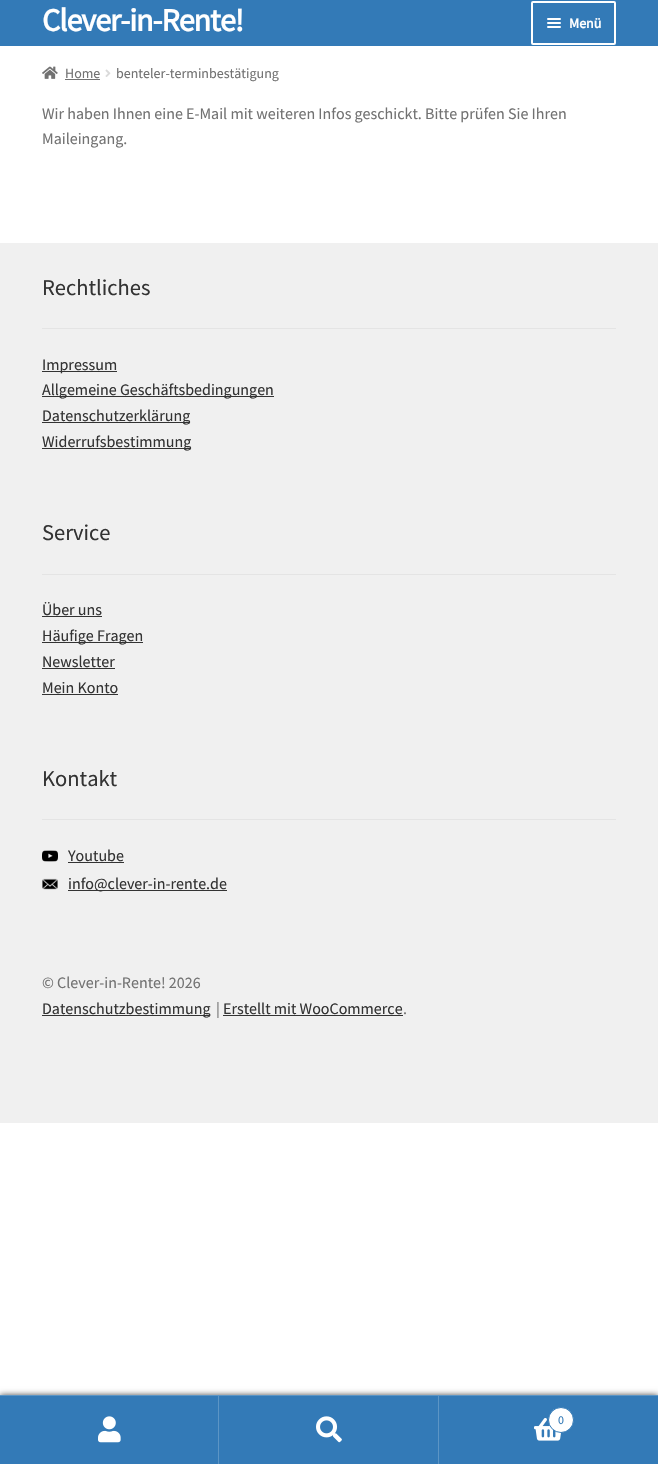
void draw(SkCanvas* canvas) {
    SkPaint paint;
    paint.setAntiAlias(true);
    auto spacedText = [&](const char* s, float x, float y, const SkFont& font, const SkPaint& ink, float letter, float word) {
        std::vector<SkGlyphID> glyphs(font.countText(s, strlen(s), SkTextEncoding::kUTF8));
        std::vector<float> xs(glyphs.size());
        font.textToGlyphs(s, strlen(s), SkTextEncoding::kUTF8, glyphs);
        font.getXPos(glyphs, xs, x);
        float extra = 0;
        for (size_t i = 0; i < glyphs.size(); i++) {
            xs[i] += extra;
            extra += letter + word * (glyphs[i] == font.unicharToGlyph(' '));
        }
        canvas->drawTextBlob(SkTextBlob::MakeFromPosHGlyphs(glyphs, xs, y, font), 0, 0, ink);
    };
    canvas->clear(0xFFFFFFFF);
    paint.setColor(0xFF337AB7);
    canvas->drawRect(SkRect::MakeXYWH(0, 0, 658, 46), paint);
    SkFont font1(fontMgr->matchFamilyStyle("Source Sans Pro", SkFontStyle::Bold()), 32);
    font1.setSubpixel(true);
    paint.setColor(0xFFFFFFFF);
    spacedText("Clever-in-Rente!", 42, 31, font1, paint, -1, 0);
    paint.setStyle(SkPaint::kStroke_Style);
    paint.setStrokeWidth(2);
    canvas->drawRoundRect(SkRect::MakeXYWH(532, 2, 83, 42), 1, 1, paint);
    paint.setStyle(SkPaint::kFill_Style);
    canvas->drawRoundRect(SkRect::MakeXYWH(547, 18, 14, 2), 1, 1, paint);
    canvas->drawRoundRect(SkRect::MakeXYWH(547, 22, 14, 2), 1, 1, paint);
    SkFont font2(fontMgr->matchFamilyStyle("Source Sans Pro", SkFontStyle::Bold()), 14);
    font2.setSubpixel(true);
    canvas->drawString("Menü", 569, 28, font2, paint);
    canvas->drawRoundRect(SkRect::MakeXYWH(547, 26, 14, 2), 1, 1, paint);
    canvas->drawImageRect(SkImages::DeferredFromEncodedData(SkData::MakeFromFileName("img1.png")), SkRect::MakeXYWH(42, 66, 16, 13), SkSamplingOptions());
    SkFont font3(fontMgr->matchFamilyStyle("Source Sans Pro", SkFontStyle::Normal()), 14);
    font3.setSubpixel(true);
    paint.setColor(0xFF727272);
    canvas->drawString("Home", 65, 78, font3, paint);
    canvas->drawRect(SkRect::MakeXYWH(65, 79, 35, 1), paint);
    canvas->drawImageRect(SkImages::DeferredFromEncodedData(SkData::MakeFromFileName("img2.png")), SkRect::MakeXYWH(105, 69, 6, 8), SkSamplingOptions());
    canvas->drawString("benteler-terminbestätigung", 116, 78, font3, paint);
    SkFont font4(fontMgr->matchFamilyStyle("Source Sans Pro", SkFontStyle::Normal()), 16);
    font4.setSubpixel(true);
    canvas->drawString("Wir haben Ihnen eine E-Mail mit weiteren Infos geschickt. Bitte prüfen Sie Ihren", 42, 119, font4, paint);
    canvas->drawString("Maileingang.", 42, 144, font4, paint);
    paint.setColor(0xFFF0F0F0);
    canvas->drawRect(SkRect::MakeXYWH(0, 243, 658, 880), paint);
    paint.setColor(0xFFE4E4E4);
    canvas->drawRect(SkRect::MakeXYWH(42, 328, 574, 1), paint);
    SkFont font5(fontMgr->matchFamilyStyle("Source Sans Pro", SkFontStyle::Normal()), 22.5f);
    font5.setSubpixel(true);
    paint.setColor(0xFF333333);
    canvas->drawString("Rechtliches", 42, 295, font5, paint);
    canvas->drawRect(SkRect::MakeXYWH(42, 371, 75, 1), paint);
    canvas->drawString("Impressum", 42, 370, font4, paint);
    canvas->drawRect(SkRect::MakeXYWH(42, 396, 232, 1), paint);
    canvas->drawString("Allgemeine Geschäftsbedingungen", 42, 395, font4, paint);
    canvas->drawRect(SkRect::MakeXYWH(42, 422, 148, 1), paint);
    canvas->drawString("Datenschutzerklärung", 42, 421, font4, paint);
    canvas->drawRect(SkRect::MakeXYWH(42, 448, 149, 1), paint);
    canvas->drawString("Widerrufsbestimmung", 42, 447, font4, paint);
    paint.setColor(0xFFE4E4E4);
    canvas->drawRect(SkRect::MakeXYWH(42, 574, 574, 1), paint);
    paint.setColor(0xFF333333);
    canvas->drawString("Service", 42, 540, font5, paint);
    canvas->drawString("Über uns", 42, 615, font4, paint);
    canvas->drawRect(SkRect::MakeXYWH(42, 616, 60, 1), paint);
    canvas->drawRect(SkRect::MakeXYWH(42, 642, 101, 1), paint);
    canvas->drawString("Häufige Fragen", 42, 641, font4, paint);
    canvas->drawString("Newsletter", 42, 667, font4, paint);
    canvas->drawRect(SkRect::MakeXYWH(42, 668, 73, 1), paint);
    canvas->drawString("Mein Konto", 42, 693, font4, paint);
    canvas->drawRect(SkRect::MakeXYWH(42, 694, 76, 1), paint);
    paint.setColor(0xFFE4E4E4);
    canvas->drawRect(SkRect::MakeXYWH(42, 819, 574, 1), paint);
    paint.setColor(0xFF333333);
    canvas->drawString("Kontakt", 42, 786, font5, paint);
    canvas->drawImageRect(SkImages::DeferredFromEncodedData(SkData::MakeFromFileName("img3.png")), SkRect::MakeXYWH(42, 850, 16, 12), SkSamplingOptions());
    canvas->drawString("Youtube", 68, 861, font4, paint);
    canvas->drawRect(SkRect::MakeXYWH(68, 862, 56, 1), paint);
    canvas->drawImageRect(SkImages::DeferredFromEncodedData(SkData::MakeFromFileName("img4.png")), SkRect::MakeXYWH(42, 878, 16, 12), SkSamplingOptions());
    canvas->drawRect(SkRect::MakeXYWH(68, 890, 159, 1), paint);
    canvas->drawString("info@clever-in-rente.de", 68, 889, font4, paint);
    paint.setColor(0xFF727272);
    canvas->drawString("© Clever-in-Rente! 2026", 42, 988, font4, paint);
    paint.setColor(0xFF333333);
    canvas->drawRect(SkRect::MakeXYWH(42, 1015, 168, 1), paint);
    canvas->drawString("Datenschutzbestimmung", 42, 1014, font4, paint);
    paint.setColor(0xFF727272);
    canvas->drawString("|", 216, 1014, font4, paint);
    paint.setColor(0xFF333333);
    canvas->drawString("Erstellt mit WooCommerce", 223, 1014, font4, paint);
    canvas->drawRect(SkRect::MakeXYWH(223, 1015, 180, 1), paint);
    paint.setColor(0xFF727272);
    canvas->drawString(".", 403, 1014, font4, paint);
    paint.setColor(0xB3000000);
    paint.setMaskFilter(SkMaskFilter::MakeBlur(kNormal_SkBlurStyle, 3));
    canvas->drawRect(SkRect::MakeXYWH(0, 1395, 658, 69), paint);
    paint.setMaskFilter(nullptr);
    paint.setColor(0xFF5C95C5);
    canvas->drawRect(SkRect::MakeXYWH(0, 1395, 658, 1), paint);
    paint.setColor(0xFF337AB7);
    canvas->drawRect(SkRect::MakeXYWH(0, 1396, 218, 68), paint);
    paint.setColor(0xFF5C95C5);
    canvas->drawRect(SkRect::MakeXYWH(218, 1396, 1, 68), paint);
    canvas->drawImageRect(SkImages::DeferredFromEncodedData(SkData::MakeFromFileName("img5.png")), SkRect::MakeXYWH(98, 1416, 23, 27), SkSamplingOptions());
    paint.setColor(0xFF337AB7);
    canvas->drawRect(SkRect::MakeXYWH(219, 1396, 219, 68), paint);
    paint.setColor(0xFF5C95C5);
    canvas->drawRect(SkRect::MakeXYWH(438, 1396, 1, 68), paint);
    canvas->drawImageRect(SkImages::DeferredFromEncodedData(SkData::MakeFromFileName("img6.png")), SkRect::MakeXYWH(316, 1416, 26, 27), SkSamplingOptions());
    paint.setColor(0xFF337AB7);
    canvas->drawRect(SkRect::MakeXYWH(439, 1396, 219, 68), paint);
    canvas->drawImageRect(SkImages::DeferredFromEncodedData(SkData::MakeFromFileName("img7.png")), SkRect::MakeXYWH(534, 1418, 28, 23), SkSamplingOptions());
    paint.setColor(0xFFFFFFFF);
    canvas->drawCircle(561, 1420, 12.5f, paint);
    paint.setStyle(SkPaint::kStroke_Style);
    paint.setStrokeWidth(1);
    paint.setColor(0xFF337AB7);
    canvas->drawCircle(561, 1420, 12.5f, paint);
    SkFont font6(fontMgr->matchFamilyStyle("Source Sans Pro", SkFontStyle::Normal()), 12);
    font6.setSubpixel(true);
    paint.setStyle(SkPaint::kFill_Style);
    canvas->drawString("0", 558, 1424, font6, paint);
}
